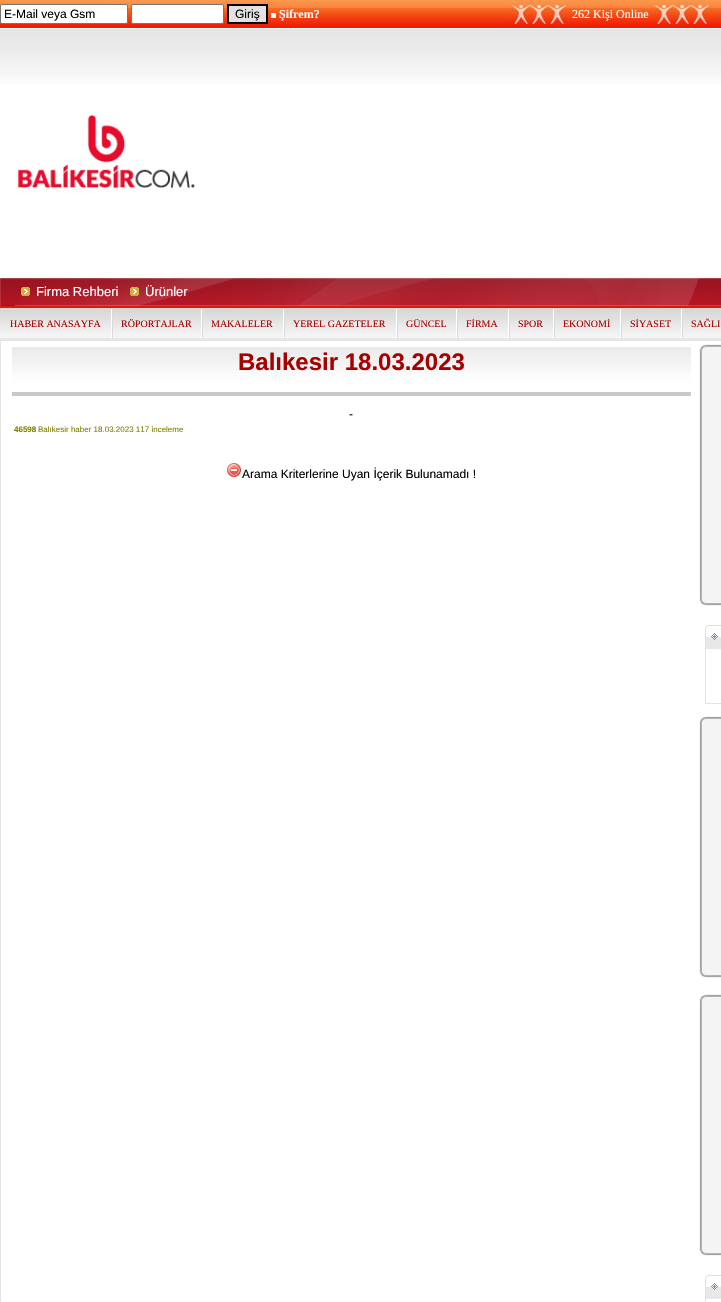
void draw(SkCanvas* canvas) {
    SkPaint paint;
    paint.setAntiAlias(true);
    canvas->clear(0xFFFFFFFF);
    paint.setColor(0xFFFB974B);
    canvas->drawRect(SkRect::MakeXYWH(0, 0, 721, 2), paint);
    canvas->drawImageRect(SkImages::DeferredFromEncodedData(SkData::MakeFromFileName("img1.png")), SkRect::MakeXYWH(0, 2, 721, 26), SkSamplingOptions());
    paint.setColor(0xFFFFFFFF);
    canvas->drawRoundRect(SkRect::MakeXYWH(0.5f, 4.5f, 127, 19), 1.5f, 1.5f, paint);
    paint.setStyle(SkPaint::kStroke_Style);
    paint.setStrokeWidth(1);
    paint.setColor(0xFF767676);
    canvas->drawRoundRect(SkRect::MakeXYWH(0.5f, 4.5f, 127, 19), 1.5f, 1.5f, paint);
    SkFont font1(fontMgr->matchFamilyStyle("Liberation Sans", SkFontStyle::Normal()), 12);
    font1.setSubpixel(true);
    paint.setStyle(SkPaint::kFill_Style);
    paint.setColor(0xFF000000);
    canvas->drawString("E-Mail veya Gsm", 4, 18, font1, paint);
    paint.setColor(0xFFFFFFFF);
    canvas->drawRoundRect(SkRect::MakeXYWH(131.5f, 4.5f, 92, 19), 1.5f, 1.5f, paint);
    paint.setStyle(SkPaint::kStroke_Style);
    paint.setColor(0xFF767676);
    canvas->drawRoundRect(SkRect::MakeXYWH(131.5f, 4.5f, 92, 19), 1.5f, 1.5f, paint);
    paint.setStyle(SkPaint::kFill_Style);
    paint.setColor(0xFFE2E2E2);
    canvas->drawRect(SkRect::MakeXYWH(228, 5, 39, 18), paint);
    paint.setStyle(SkPaint::kStroke_Style);
    paint.setStrokeWidth(2);
    paint.setColor(0xFF000000);
    canvas->drawRect(SkRect::MakeXYWH(228, 5, 39, 18), paint);
    paint.setStyle(SkPaint::kFill_Style);
    canvas->drawString("Giriş", 235, 18, font1, paint);
    paint.setColor(0xFFFFFFFF);
    canvas->drawRect(SkRect::MakeXYWH(271, 13, 5, 5), paint);
    SkFont font2(fontMgr->matchFamilyStyle("Liberation Serif", SkFontStyle::Bold()), 12);
    font2.setSubpixel(true);
    paint.setColor(0xFFF2F2F2);
    canvas->drawString("Şifrem?", 279, 18, font2, paint);
    canvas->drawImageRect(SkImages::DeferredFromEncodedData(SkData::MakeFromFileName("img2.png")), SkRect::MakeXYWH(510, 0, 200, 24), SkSamplingOptions());
    SkFont font3(fontMgr->matchFamilyStyle("Liberation Serif", SkFontStyle::Normal()), 12);
    font3.setSubpixel(true);
    paint.setColor(0xFFFFFFFF);
    canvas->drawString("262 Kişi Online", 572, 18, font3, paint);
    canvas->drawImageRect(SkImages::DeferredFromEncodedData(SkData::MakeFromFileName("img3.png")), SkRect::MakeXYWH(0, 29, 721, 55), SkSamplingOptions());
    canvas->drawImageRect(SkImages::DeferredFromEncodedData(SkData::MakeFromFileName("img4.png")), SkRect::MakeXYWH(18, 115, 177, 74), SkSamplingOptions());
    canvas->drawImageRect(SkImages::DeferredFromEncodedData(SkData::MakeFromFileName("img5.png")), SkRect::MakeXYWH(0, 278, 721, 28), SkSamplingOptions());
    canvas->drawImageRect(SkImages::DeferredFromEncodedData(SkData::MakeFromFileName("img6.png")), SkRect::MakeXYWH(21, 287, 9, 9), SkSamplingOptions());
    SkFont font4(fontMgr->matchFamilyStyle("Liberation Sans", SkFontStyle::Normal()), 13);
    font4.setSubpixel(true);
    canvas->drawString("Firma Rehberi", 36, 296, font4, paint);
    canvas->drawImageRect(SkImages::DeferredFromEncodedData(SkData::MakeFromFileName("img7.png")), SkRect::MakeXYWH(130, 287, 9, 9), SkSamplingOptions());
    canvas->drawString("Ürünler", 145, 296, font4, paint);
    paint.setColor(0xFFE8E8E8);
    canvas->drawRect(SkRect::MakeXYWH(0, 338, 721, 1), paint);
    canvas->drawImageRect(SkImages::DeferredFromEncodedData(SkData::MakeFromFileName("img8.png")), SkRect::MakeXYWH(0, 308, 721, 30), SkSamplingOptions());
    paint.setColor(0xFFD71B0F);
    canvas->drawRect(SkRect::MakeXYWH(0, 306, 721, 2), paint);
    paint.setColor(0xFFE6E6E6);
    canvas->drawRect(SkRect::MakeXYWH(0, 339, 721, 1), paint);
    SkFont font5(fontMgr->matchFamilyStyle("Liberation Serif", SkFontStyle::Normal()), 10);
    font5.setSubpixel(true);
    paint.setColor(0xFFA60000);
    canvas->drawString("HABER ANASAYFA", 10, 327, font5, paint);
    canvas->drawImageRect(SkImages::DeferredFromEncodedData(SkData::MakeFromFileName("img9.png")), SkRect::MakeXYWH(111, 309, 2, 29), SkSamplingOptions());
    canvas->drawString("RÖPORTAJLAR", 121, 327, font5, paint);
    canvas->drawImageRect(SkImages::DeferredFromEncodedData(SkData::MakeFromFileName("img9.png")), SkRect::MakeXYWH(201, 309, 2, 29), SkSamplingOptions());
    canvas->drawString("MAKALELER", 211, 327, font5, paint);
    canvas->drawImageRect(SkImages::DeferredFromEncodedData(SkData::MakeFromFileName("img9.png")), SkRect::MakeXYWH(283, 309, 2, 29), SkSamplingOptions());
    canvas->drawString("YEREL GAZETELER", 293, 327, font5, paint);
    canvas->drawImageRect(SkImages::DeferredFromEncodedData(SkData::MakeFromFileName("img9.png")), SkRect::MakeXYWH(396, 309, 2, 29), SkSamplingOptions());
    canvas->drawString("GÜNCEL", 406, 327, font5, paint);
    canvas->drawImageRect(SkImages::DeferredFromEncodedData(SkData::MakeFromFileName("img9.png")), SkRect::MakeXYWH(456, 309, 2, 29), SkSamplingOptions());
    canvas->drawString("FİRMA", 466, 327, font5, paint);
    canvas->drawImageRect(SkImages::DeferredFromEncodedData(SkData::MakeFromFileName("img9.png")), SkRect::MakeXYWH(508, 309, 2, 29), SkSamplingOptions());
    canvas->drawString("SPOR", 518, 327, font5, paint);
    canvas->drawImageRect(SkImages::DeferredFromEncodedData(SkData::MakeFromFileName("img9.png")), SkRect::MakeXYWH(553, 309, 2, 29), SkSamplingOptions());
    canvas->drawString("EKONOMİ", 563, 327, font5, paint);
    canvas->drawImageRect(SkImages::DeferredFromEncodedData(SkData::MakeFromFileName("img9.png")), SkRect::MakeXYWH(620, 309, 2, 29), SkSamplingOptions());
    canvas->drawString("SİYASET", 630, 327, font5, paint);
    canvas->drawImageRect(SkImages::DeferredFromEncodedData(SkData::MakeFromFileName("img9.png")), SkRect::MakeXYWH(681, 309, 2, 29), SkSamplingOptions());
    canvas->drawString("SAĞLI", 691, 327, font5, paint);
    paint.setStyle(SkPaint::kStroke_Style);
    paint.setStrokeWidth(1);
    paint.setColor(0xFFE4E4E4);
    canvas->drawRect(SkRect::MakeXYWH(0.5f, 340.5f, 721, 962), paint);
    canvas->drawImageRect(SkImages::DeferredFromEncodedData(SkData::MakeFromFileName("img10.png")), SkRect::MakeXYWH(12, 347, 679, 49), SkSamplingOptions());
    SkFont font6(fontMgr->matchFamilyStyle("Liberation Sans", SkFontStyle::Bold()), 24);
    font6.setSubpixel(true);
    paint.setStyle(SkPaint::kFill_Style);
    paint.setColor(0xFFA60000);
    canvas->drawString("Balıkesir 18.03.2023", 238, 370, font6, paint);
    paint.setColor(0xFF000000);
    canvas->drawString("-", 349, 418, font1, paint);
    SkFont font7(fontMgr->matchFamilyStyle("Liberation Sans", SkFontStyle::Bold()), 8);
    font7.setSubpixel(true);
    paint.setColor(0xFF808000);
    canvas->drawString("46598", 14, 432, font7, paint);
    SkFont font8(fontMgr->matchFamilyStyle("Liberation Sans", SkFontStyle::Normal()), 8);
    font8.setSubpixel(true);
    canvas->drawString("Balıkesir haber 18.03.2023 117 inceleme", 38, 432, font8, paint);
    canvas->drawImageRect(SkImages::DeferredFromEncodedData(SkData::MakeFromFileName("img11.png")), SkRect::MakeXYWH(227, 463, 14, 14), SkSamplingOptions());
    paint.setColor(0xFF000000);
    canvas->drawString("Arama Kriterlerine Uyan İçerik Bulunamadı !", 242, 478, font1, paint);
    paint.setColor(0xFF999999);
    paint.setMaskFilter(SkMaskFilter::MakeBlur(kNormal_SkBlurStyle, 0.5f));
    canvas->drawRoundRect(SkRect::MakeXYWH(700, 345, 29, 260), 6, 6, paint);
    paint.setMaskFilter(nullptr);
    paint.setColor(0xFFF4F4F4);
    canvas->drawRoundRect(SkRect::MakeXYWH(701.5f, 346.5f, 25, 257), 4.5f, 4.5f, paint);
    paint.setStyle(SkPaint::kStroke_Style);
    paint.setColor(0xFFB3B3B3);
    canvas->drawRoundRect(SkRect::MakeXYWH(701.5f, 346.5f, 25, 257), 4.5f, 4.5f, paint);
    canvas->drawImageRect(SkImages::DeferredFromEncodedData(SkData::MakeFromFileName("img12.png")), SkRect::MakeXYWH(705, 625, 5, 24), SkSamplingOptions());
    canvas->drawImageRect(SkImages::DeferredFromEncodedData(SkData::MakeFromFileName("img13.png")), SkRect::MakeXYWH(710, 625, 11, 24), SkSamplingOptions());
    canvas->drawImageRect(SkImages::DeferredFromEncodedData(SkData::MakeFromFileName("img14.png")), SkRect::MakeXYWH(711, 633, 7, 7), SkSamplingOptions());
    paint.setStyle(SkPaint::kFill_Style);
    paint.setColor(0xFFE4E4E4);
    canvas->drawRect(SkRect::MakeXYWH(705, 703, 16, 1), paint);
    canvas->drawRect(SkRect::MakeXYWH(705, 649, 1, 55), paint);
    paint.setColor(0xFF999999);
    paint.setMaskFilter(SkMaskFilter::MakeBlur(kNormal_SkBlurStyle, 0.5f));
    canvas->drawRoundRect(SkRect::MakeXYWH(700, 717, 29, 260), 6, 6, paint);
    paint.setMaskFilter(nullptr);
    paint.setColor(0xFFF4F4F4);
    canvas->drawRoundRect(SkRect::MakeXYWH(701.5f, 718.5f, 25, 257), 4.5f, 4.5f, paint);
    paint.setStyle(SkPaint::kStroke_Style);
    paint.setColor(0xFFB3B3B3);
    canvas->drawRoundRect(SkRect::MakeXYWH(701.5f, 718.5f, 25, 257), 4.5f, 4.5f, paint);
    paint.setStyle(SkPaint::kFill_Style);
    paint.setColor(0xFF999999);
    paint.setMaskFilter(SkMaskFilter::MakeBlur(kNormal_SkBlurStyle, 0.5f));
    canvas->drawRoundRect(SkRect::MakeXYWH(700, 995, 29, 260), 6, 6, paint);
    paint.setMaskFilter(nullptr);
    paint.setColor(0xFFF4F4F4);
    canvas->drawRoundRect(SkRect::MakeXYWH(701.5f, 996.5f, 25, 257), 4.5f, 4.5f, paint);
    paint.setStyle(SkPaint::kStroke_Style);
    paint.setColor(0xFFB3B3B3);
    canvas->drawRoundRect(SkRect::MakeXYWH(701.5f, 996.5f, 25, 257), 4.5f, 4.5f, paint);
    canvas->drawImageRect(SkImages::DeferredFromEncodedData(SkData::MakeFromFileName("img12.png")), SkRect::MakeXYWH(705, 1275, 5, 24), SkSamplingOptions());
    canvas->drawImageRect(SkImages::DeferredFromEncodedData(SkData::MakeFromFileName("img13.png")), SkRect::MakeXYWH(710, 1275, 11, 24), SkSamplingOptions());
    canvas->drawImageRect(SkImages::DeferredFromEncodedData(SkData::MakeFromFileName("img14.png")), SkRect::MakeXYWH(711, 1283, 7, 7), SkSamplingOptions());
    paint.setStyle(SkPaint::kFill_Style);
    paint.setColor(0xFFE4E4E4);
    canvas->drawRect(SkRect::MakeXYWH(705, 1299, 1, 3), paint);
}
